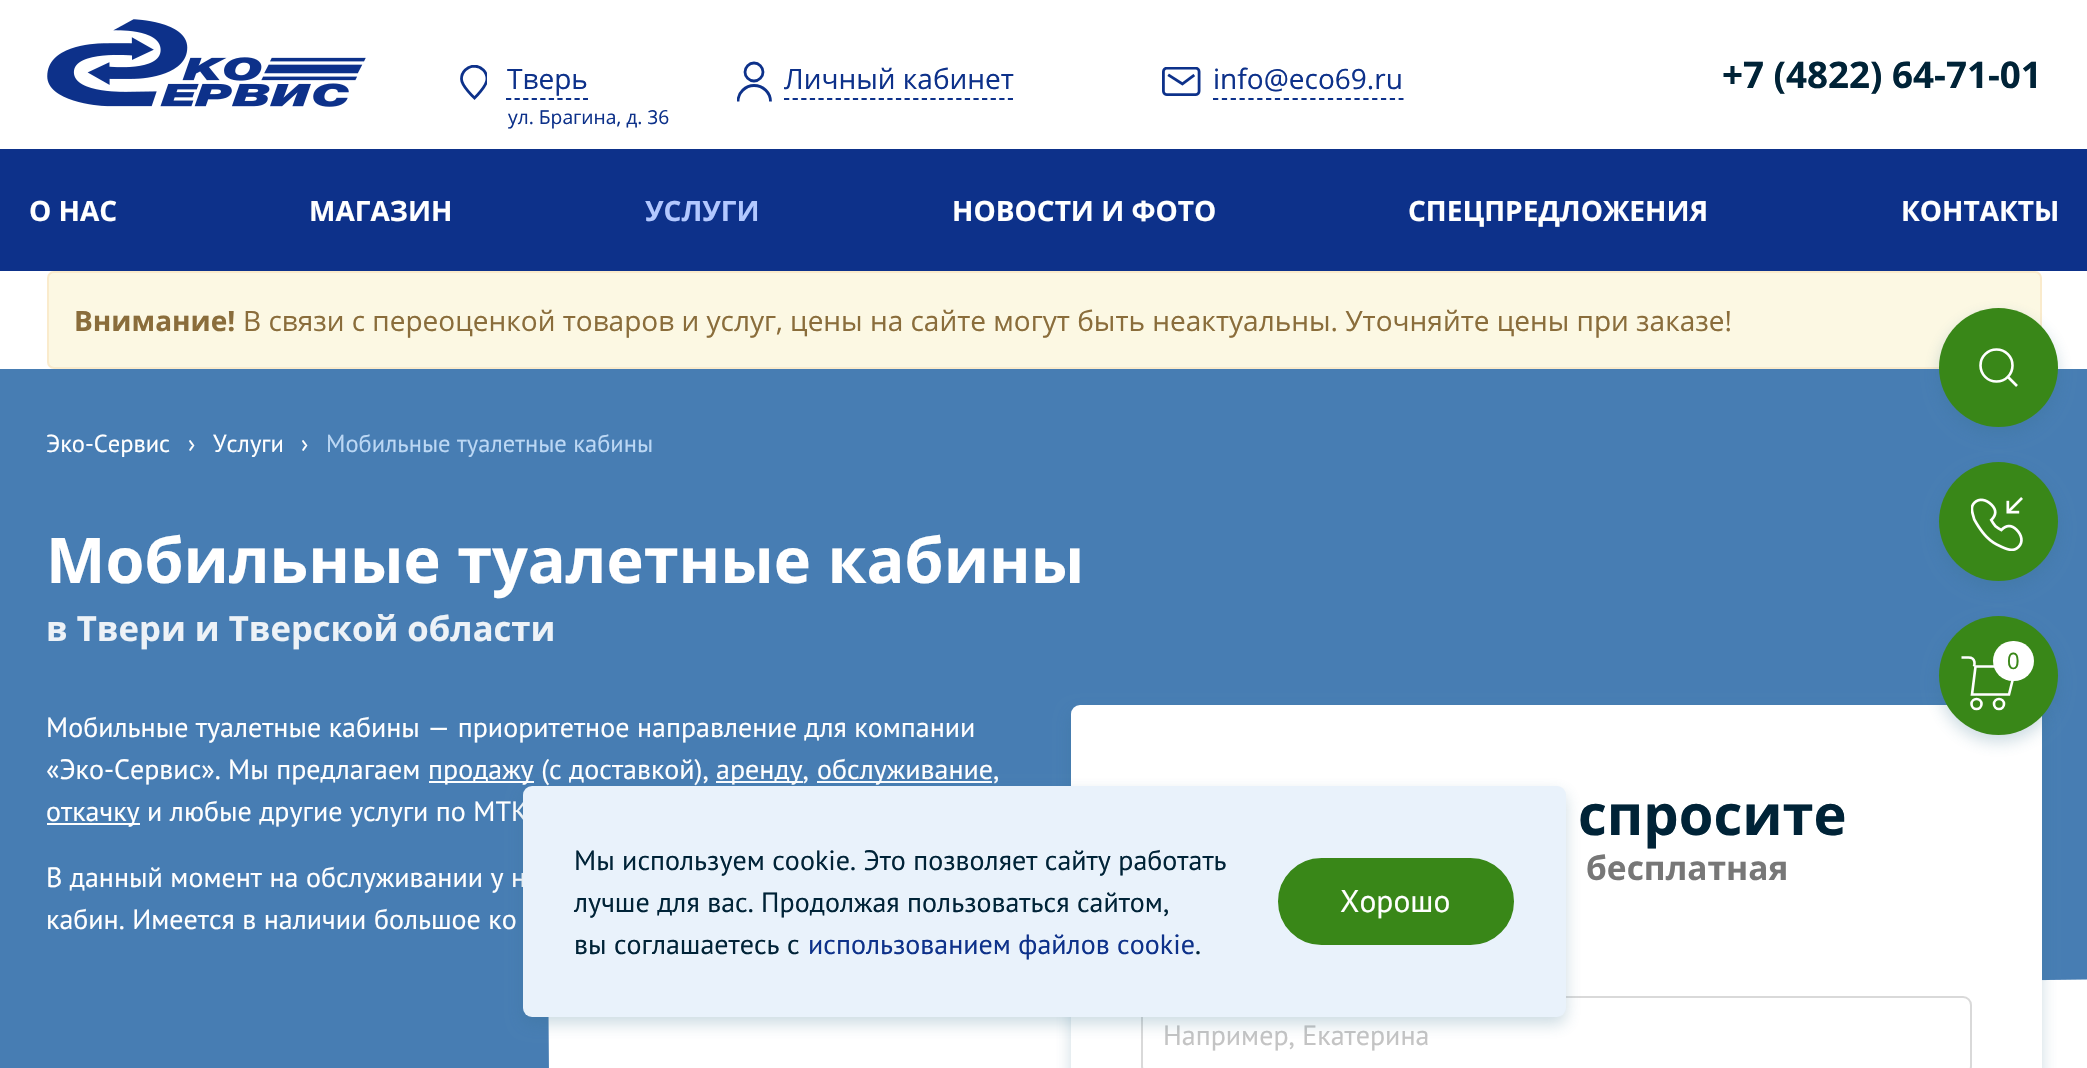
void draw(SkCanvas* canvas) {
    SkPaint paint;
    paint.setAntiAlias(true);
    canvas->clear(0xFFFFFFFF);
    canvas->drawImageRect(SkImages::DeferredFromEncodedData(SkData::MakeFromFileName("img1.png")), SkRect::MakeXYWH(47, 19, 319, 88), SkSamplingOptions());
    SkFont font1(fontMgr->matchFamilyStyle("Open Sans", SkFontStyle::Normal()), 28);
    font1.setSubpixel(true);
    paint.setColor(0xFF0D318A);
    canvas->drawString("Тверь", 507, 89, font1, paint);
    canvas->save();
    canvas->clipRect(SkRect::MakeXYWH(460, 65, 27, 35));
    paint.setStyle(SkPaint::kStroke_Style);
    paint.setStrokeWidth(2.8f);
    canvas->drawPath(SkPathBuilder().moveTo(474.5f, 66).cubicTo(481.5f, 66.5f, 487, 72, 487, 79).cubicTo(487, 86, 474.5f, 98, 474.5f, 98).cubicTo(474.5f, 98, 461.5f, 86, 461.5f, 79).cubicTo(461.5f, 72, 467, 66.5f, 474.5f, 66).close().detach(), paint);
    canvas->restore();
    paint.setStrokeWidth(1.8f);
    paint.setPathEffect(SkDashPathEffect::Make({{5.25f, 3.31f}}, 0));
    canvas->drawPath(SkPathBuilder().moveTo(506, 99).lineTo(588, 99).detach(), paint);
    paint.setPathEffect(nullptr);
    SkFont font2(fontMgr->matchFamilyStyle("Open Sans", SkFontStyle::Normal()), 19.25f);
    font2.setSubpixel(true);
    paint.setStyle(SkPaint::kFill_Style);
    canvas->drawString("ул. Брагина, д. 36", 508, 124, font2, paint);
    paint.setStyle(SkPaint::kStroke_Style);
    paint.setStrokeWidth(2.8f);
    canvas->drawCircle(754, 72, 9, paint);
    paint.setStyle(SkPaint::kFill_Style);
    canvas->drawString("Личный кабинет", 784, 89, font1, paint);
    paint.setStyle(SkPaint::kStroke_Style);
    paint.setStrokeWidth(1.8f);
    paint.setPathEffect(SkDashPathEffect::Make({{5.25f, 3.36f}}, 0));
    canvas->drawPath(SkPathBuilder().moveTo(784, 99).lineTo(1013, 99).detach(), paint);
    paint.setPathEffect(nullptr);
    canvas->save();
    canvas->clipRect(SkRect::MakeXYWH(737, 61, 35, 41));
    paint.setStrokeWidth(2.8f);
    canvas->drawPath(SkPathBuilder().moveTo(738, 101.5f).cubicTo(738, 92.5f, 745.5f, 85.5f, 754, 85.5f).cubicTo(763, 85.5f, 770.5f, 92.5f, 770.5f, 101.5f).detach(), paint);
    canvas->restore();
    canvas->drawImageRect(SkImages::DeferredFromEncodedData(SkData::MakeFromFileName("img2.png")), SkRect::MakeXYWH(1162, 67, 39, 29), SkSamplingOptions());
    paint.setStyle(SkPaint::kFill_Style);
    canvas->drawString("info@eco69.ru", 1213, 89, font1, paint);
    paint.setStyle(SkPaint::kStroke_Style);
    paint.setStrokeWidth(1.8f);
    paint.setPathEffect(SkDashPathEffect::Make({{5.25f, 3.59f}}, 0));
    canvas->drawPath(SkPathBuilder().moveTo(1213, 99).lineTo(1403.5f, 99).detach(), paint);
    paint.setPathEffect(nullptr);
    SkFont font3(fontMgr->matchFamilyStyle("Open Sans", SkFontStyle::Bold()), 36.75f);
    font3.setSubpixel(true);
    paint.setStyle(SkPaint::kFill_Style);
    paint.setColor(0xFF002337);
    canvas->drawString("+7 (4822) 64-71-01", 1722, 88, font3, paint);
    paint.setColor(0xFF0D318A);
    canvas->drawRect(SkRect::MakeXYWH(0, 149, 2087, 122), paint);
    SkFont font4(fontMgr->matchFamilyStyle("Open Sans", SkFontStyle::Bold()), 28);
    font4.setSubpixel(true);
    paint.setColor(0xFFFFFFFF);
    canvas->drawString("О НАС", 29, 221, font4, paint);
    canvas->drawString("МАГАЗИН", 309, 221, font4, paint);
    paint.setColor(0xFFB2C8FF);
    canvas->drawString("УСЛУГИ", 645, 221, font4, paint);
    paint.setColor(0xFFFFFFFF);
    canvas->drawString("НОВОСТИ И ФОТО", 952, 221, font4, paint);
    canvas->drawString("СПЕЦПРЕДЛОЖЕНИЯ", 1408, 221, font4, paint);
    canvas->drawString("КОНТАКТЫ", 1901, 221, font4, paint);
    paint.setColor(0xFFFCF8E3);
    canvas->drawRoundRect(SkRect::MakeXYWH(48, 272, 1993, 96), 6, 6, paint);
    paint.setStyle(SkPaint::kStroke_Style);
    paint.setStrokeWidth(2);
    paint.setColor(0xFFFAEBCC);
    canvas->drawRoundRect(SkRect::MakeXYWH(48, 272, 1993, 96), 6, 6, paint);
    paint.setStyle(SkPaint::kFill_Style);
    paint.setColor(0xFF8A6D3B);
    canvas->drawString("Внимание!", 74, 331, font4, paint);
    canvas->drawString("В связи с переоценкой товаров и услуг, цены на сайте могут быть неактуальны. Уточняйте цены при заказе!", 243, 331, font1, paint);
    canvas->drawImageRect(SkImages::DeferredFromEncodedData(SkData::MakeFromFileName("img3.png")), SkRect::MakeXYWH(0, 369, 2087, 699), SkSamplingOptions());
    SkFont font5(fontMgr->matchFamilyStyle("PT Sans", SkFontStyle::Normal()), 24.5f);
    font5.setSubpixel(true);
    paint.setColor(0xFFFFFFFF);
    canvas->drawString("Эко-Cервис", 46, 452, font5, paint);
    canvas->drawString("›", 188, 452, font5, paint);
    canvas->drawString("Услуги", 213, 452, font5, paint);
    canvas->drawString("›", 301, 452, font5, paint);
    paint.setColor(0xFFBBD7F4);
    canvas->drawString("Мобильные туалетные кабины", 326, 452, font5, paint);
    SkFont font6(fontMgr->matchFamilyStyle("Open Sans", SkFontStyle::Bold()), 63);
    font6.setSubpixel(true);
    paint.setColor(0xFFFFFFFF);
    canvas->drawString("Мобильные туалетные кабины", 46, 583, font6, paint);
    SkFont font7(fontMgr->matchFamilyStyle("Open Sans", SkFontStyle::Bold()), 34.6f);
    font7.setSubpixel(true);
    paint.setColor(0xFFEDF2F7);
    canvas->drawString("в Твери и Тверской области", 46, 641, font7, paint);
    SkFont font8(fontMgr->matchFamilyStyle("PT Sans", SkFontStyle::Normal()), 28);
    font8.setSubpixel(true);
    paint.setColor(0xFFFFFFFF);
    canvas->drawString("Мобильные туалетные кабины — приоритетное направление для компании", 46, 737, font8, paint);
    canvas->drawString("«Эко-Сервис». Мы предлагаем", 46, 779, font8, paint);
    canvas->drawRect(SkRect::MakeXYWH(429, 781, 105, 2), paint);
    canvas->drawString("продажу (с доставкой),", 428, 779, font8, paint);
    canvas->drawRect(SkRect::MakeXYWH(716, 781, 87, 2), paint);
    canvas->drawString("аренду,", 716, 779, font8, paint);
    canvas->drawRect(SkRect::MakeXYWH(817, 781, 175, 2), paint);
    canvas->drawString("обслуживание,", 817, 779, font8, paint);
    canvas->drawRect(SkRect::MakeXYWH(47, 823, 93, 2), paint);
    canvas->drawString("откачку и любые другие услуги по МТК", 46, 821, font8, paint);
    canvas->drawString("В данный момент на обслуживании у н", 46, 887, font8, paint);
    canvas->drawString("кабин. Имеется в наличии большое ко", 46, 929, font8, paint);
    paint.setColor(0x4035708B);
    paint.setMaskFilter(SkMaskFilter::MakeBlur(kNormal_SkBlurStyle, 8));
    canvas->drawRoundRect(SkRect::MakeXYWH(1071, 712, 971, 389), 9, 9, paint);
    paint.setMaskFilter(nullptr);
    paint.setColor(0xFFFFFFFF);
    canvas->drawRoundRect(SkRect::MakeXYWH(1071, 705, 971, 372), 9, 9, paint);
    SkFont font9(fontMgr->matchFamilyStyle("Open Sans", SkFontStyle::Bold()), 56);
    font9.setSubpixel(true);
    paint.setColor(0xFF002337);
    canvas->drawString("спросите", 1578, 835, font9, paint);
    SkFont font10(fontMgr->matchFamilyStyle("Open Sans", SkFontStyle::Bold()), 33.5f);
    font10.setSubpixel(true);
    paint.setColor(0xFF777777);
    canvas->drawString("бесплатная", 1586, 880, font10, paint);
    paint.setStyle(SkPaint::kStroke_Style);
    paint.setColor(0xFFD9D9D9);
    canvas->drawRoundRect(SkRect::MakeXYWH(1142, 997, 829, 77), 8, 8, paint);
    paint.setStyle(SkPaint::kFill_Style);
    paint.setColor(0xFFC4C4C4);
    canvas->drawString("Например, Екатерина", 1163, 1045, font8, paint);
    paint.setColor(0x4035708B);
    paint.setMaskFilter(SkMaskFilter::MakeBlur(kNormal_SkBlurStyle, 8));
    canvas->drawRoundRect(SkRect::MakeXYWH(1939, 315, 119, 119), 59.5f, 59.5f, paint);
    paint.setMaskFilter(nullptr);
    paint.setColor(0xFF398718);
    canvas->drawCircle(1998.5f, 367.5f, 59.5f, paint);
    paint.setStyle(SkPaint::kStroke_Style);
    paint.setStrokeWidth(2.6f);
    paint.setColor(0xFFFFFFFF);
    canvas->drawCircle(1996.5f, 365.5f, 16, paint);
    canvas->drawPath(SkPathBuilder().moveTo(2007.5f, 376.5f).lineTo(2017, 386).detach(), paint);
    paint.setStyle(SkPaint::kFill_Style);
    paint.setColor(0x4035708B);
    paint.setMaskFilter(SkMaskFilter::MakeBlur(kNormal_SkBlurStyle, 8));
    canvas->drawRoundRect(SkRect::MakeXYWH(1939, 469, 119, 119), 59.5f, 59.5f, paint);
    paint.setMaskFilter(nullptr);
    paint.setColor(0xFF398718);
    canvas->drawCircle(1998.5f, 521.5f, 59.5f, paint);
    canvas->drawImageRect(SkImages::DeferredFromEncodedData(SkData::MakeFromFileName("img4.png")), SkRect::MakeXYWH(1971, 497, 52, 54), SkSamplingOptions());
    paint.setColor(0x4035708B);
    paint.setMaskFilter(SkMaskFilter::MakeBlur(kNormal_SkBlurStyle, 8));
    canvas->drawRoundRect(SkRect::MakeXYWH(1939, 623, 119, 119), 59.5f, 59.5f, paint);
    paint.setMaskFilter(nullptr);
    paint.setColor(0xFF398718);
    canvas->drawCircle(1998.5f, 675.5f, 59.5f, paint);
    paint.setStyle(SkPaint::kStroke_Style);
    paint.setColor(0xFFFFFFFF);
    canvas->drawPath(SkPathBuilder().moveTo(1975.5f, 666.5f).lineTo(2016, 666.5f).lineTo(2009, 694.5f).lineTo(1972, 694.5f).close().moveTo(1974, 666.5f).cubicTo(1974, 666.5f, 1977, 657.5f, 1968.5f, 657.5f).lineTo(1961.5f, 657.5f).detach(), paint);
    paint.setStyle(SkPaint::kFill_Style);
    canvas->drawRoundRect(SkRect::MakeXYWH(1993, 641, 41, 40), 20, 20, paint);
    SkFont font11(fontMgr->matchFamilyStyle("PT Sans", SkFontStyle::Normal()), 23);
    font11.setSubpixel(true);
    paint.setColor(0xFF398718);
    canvas->drawString("0", 2007, 669, font11, paint);
    paint.setStyle(SkPaint::kStroke_Style);
    paint.setColor(0xFFFFFFFF);
    canvas->drawCircle(1976.5f, 704, 5, paint);
    canvas->drawCircle(1999, 704, 5, paint);
    paint.setStyle(SkPaint::kFill_Style);
    paint.setColor(0x4035708B);
    paint.setMaskFilter(SkMaskFilter::MakeBlur(kNormal_SkBlurStyle, 8));
    canvas->drawRoundRect(SkRect::MakeXYWH(523, 793, 1043, 231), 9, 9, paint);
    paint.setMaskFilter(nullptr);
    paint.setColor(0xFFE9F2FB);
    canvas->drawRoundRect(SkRect::MakeXYWH(523, 786, 1043, 231), 9, 9, paint);
    paint.setColor(0xFF002337);
    canvas->drawString("Мы используем cookie. Это позволяет сайту работать", 574, 870, font8, paint);
    canvas->drawString("лучше для вас. Продолжая пользоваться сайтом,", 574, 912, font8, paint);
    canvas->drawString("вы соглашаетесь с", 574, 954, font8, paint);
    paint.setColor(0xFF0D318A);
    canvas->drawString("использованием файлов cookie", 808, 954, font8, paint);
    paint.setColor(0xFF002337);
    canvas->drawString(".", 1195, 954, font8, paint);
    paint.setColor(0xFF398718);
    canvas->drawRoundRect(SkRect::MakeXYWH(1279, 859, 234, 85), 42.5f, 42.5f, paint);
    paint.setStyle(SkPaint::kStroke_Style);
    paint.setStrokeWidth(2);
    canvas->drawRoundRect(SkRect::MakeXYWH(1279, 859, 234, 85), 42.5f, 42.5f, paint);
    SkFont font12(fontMgr->matchFamilyStyle("PT Sans", SkFontStyle::Normal()), 31.5f);
    font12.setSubpixel(true);
    paint.setStyle(SkPaint::kFill_Style);
    paint.setColor(0xFFFFFFFF);
    canvas->drawString("Хорошо", 1340, 912, font12, paint);
}
